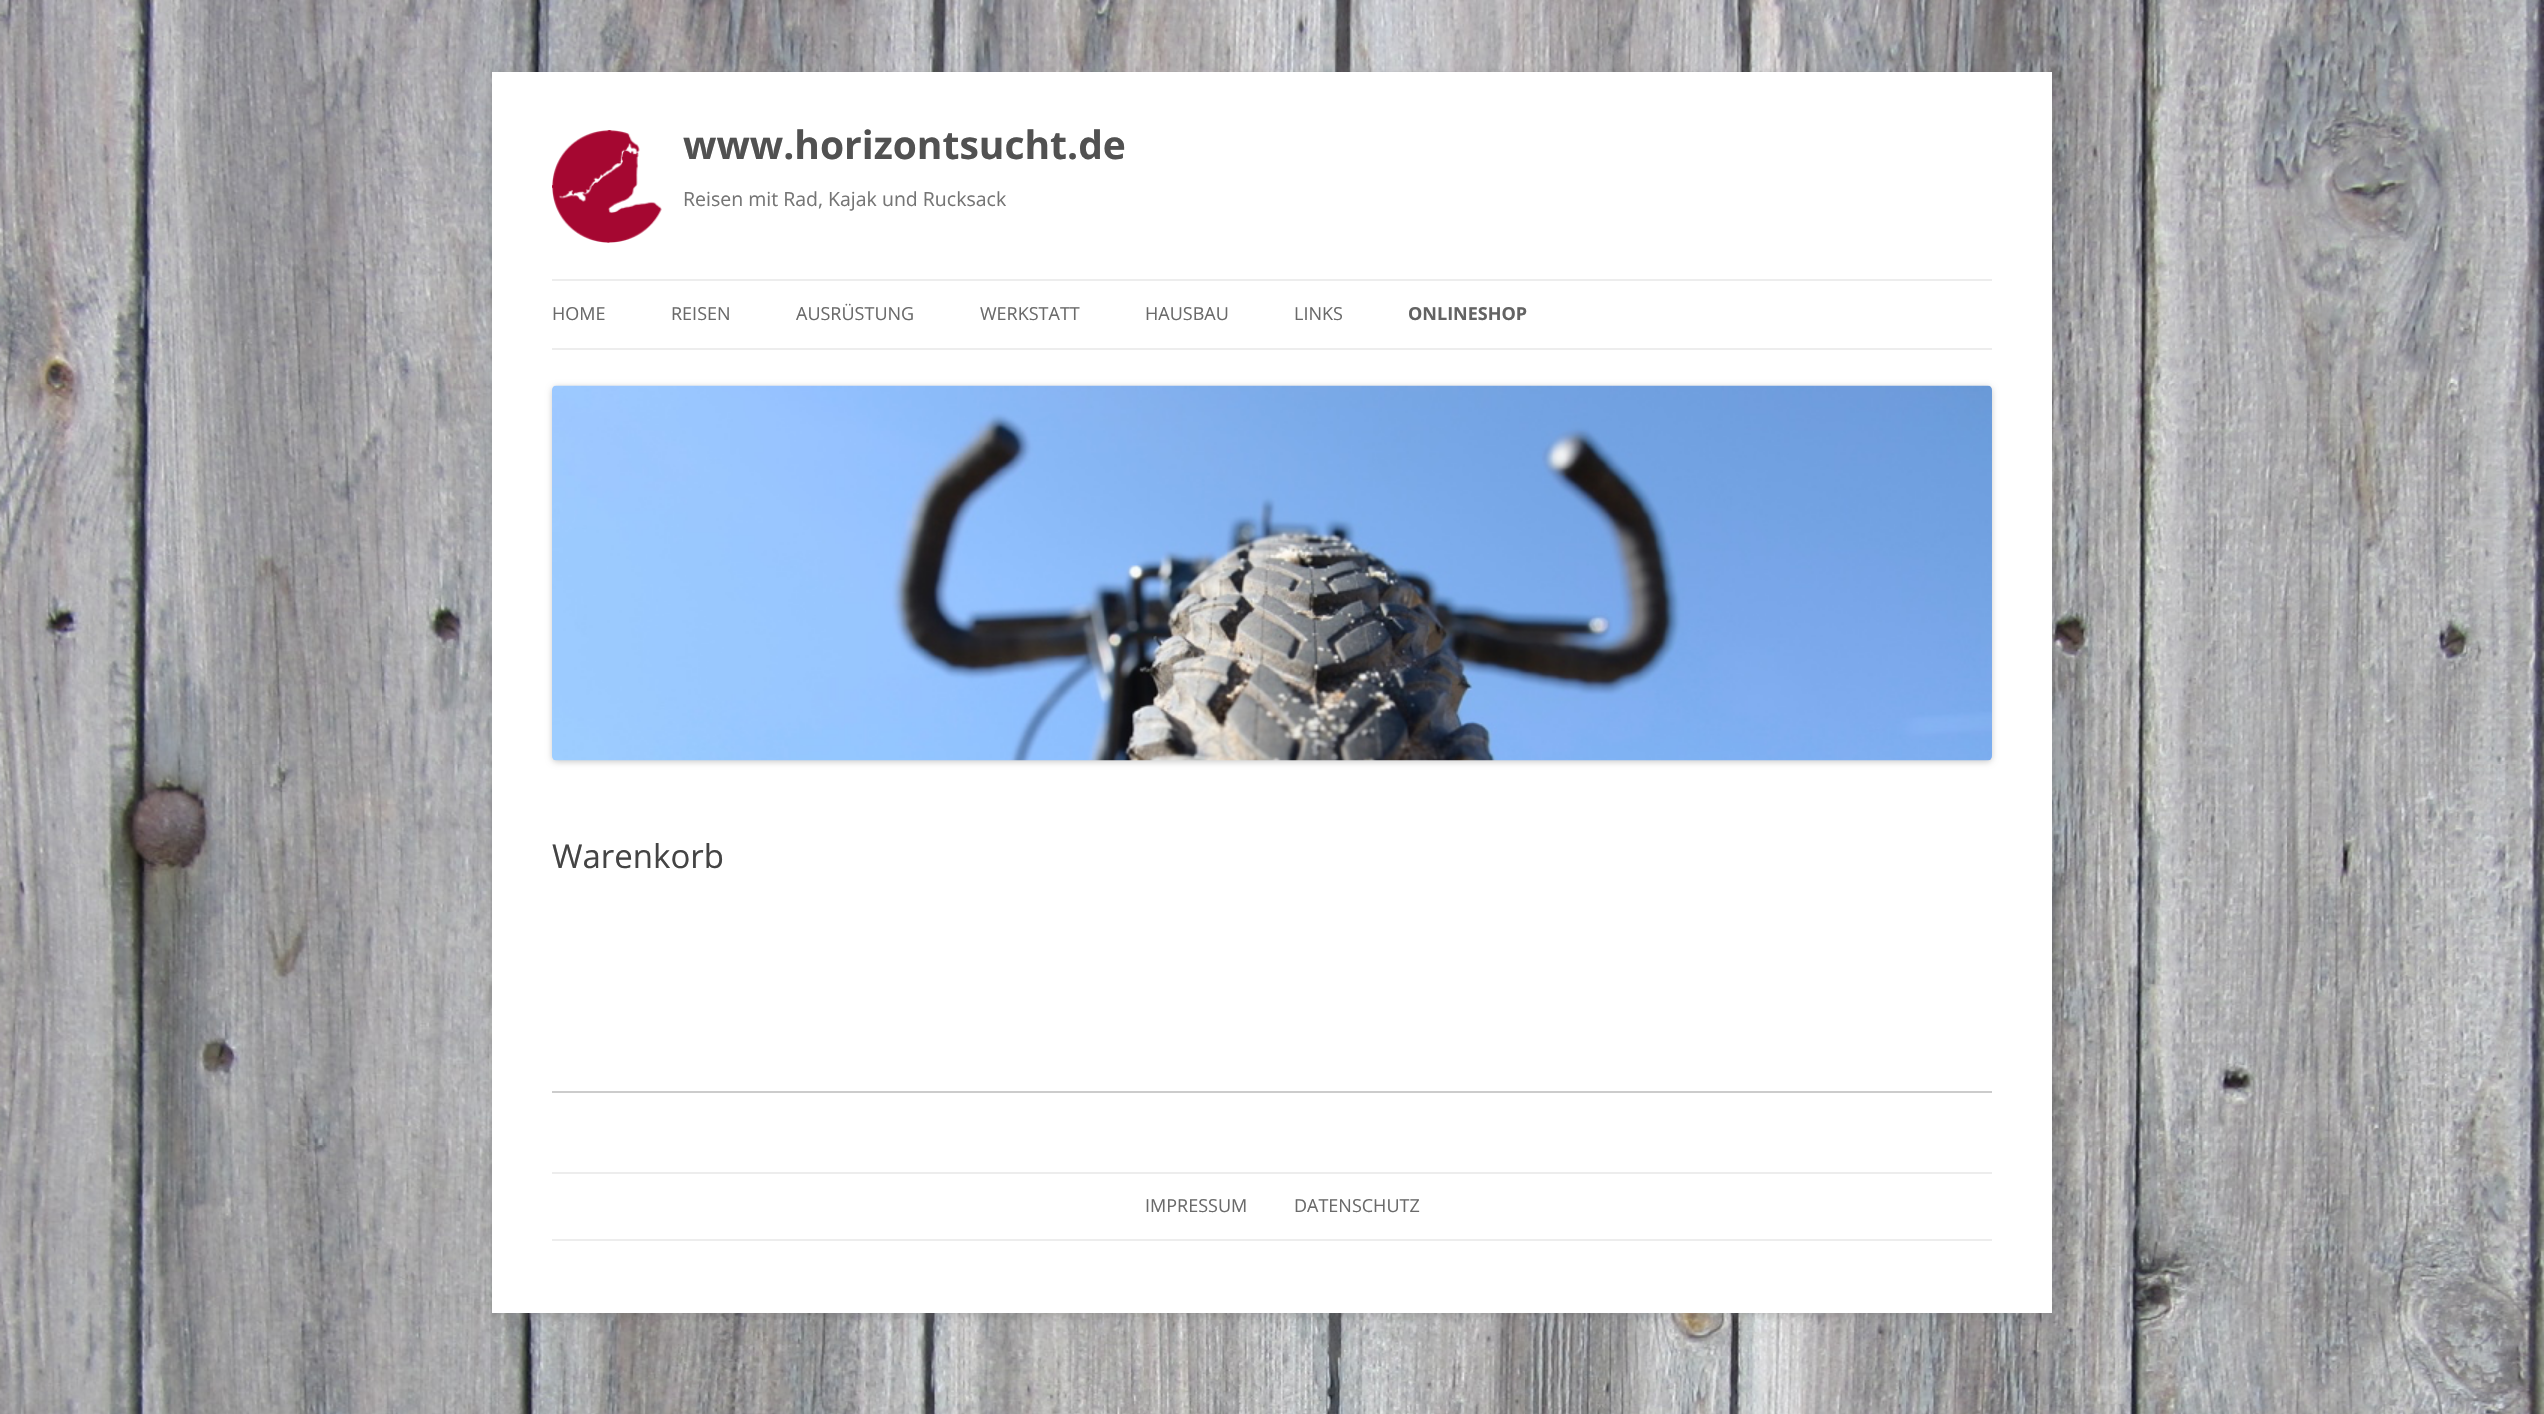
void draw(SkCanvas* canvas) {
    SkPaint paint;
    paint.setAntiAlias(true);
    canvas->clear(0xFFFFFFFF);
    canvas->drawImageRect(SkImages::DeferredFromEncodedData(SkData::MakeFromFileName("img1.png")), SkRect::MakeXYWH(0, 0, 2544, 1414), SkSamplingOptions());
    paint.setColor(0x4D646464);
    paint.setMaskFilter(SkMaskFilter::MakeBlur(kNormal_SkBlurStyle, 4.5f));
    canvas->drawRect(SkRect::MakeXYWH(492, 75, 1560, 1241), paint);
    paint.setMaskFilter(nullptr);
    paint.setColor(0xFFFFFFFF);
    canvas->drawRect(SkRect::MakeXYWH(492, 72, 1560, 1241), paint);
    canvas->drawImageRect(SkImages::DeferredFromEncodedData(SkData::MakeFromFileName("img2.png")), SkRect::MakeXYWH(552, 130, 110, 113), SkSamplingOptions());
    SkFont font1(fontMgr->matchFamilyStyle("Open Sans", SkFontStyle::Bold()), 39);
    font1.setSubpixel(true);
    paint.setColor(0xFF515151);
    canvas->drawString("www.horizontsucht.de", 683, 159, font1, paint);
    SkFont font2(fontMgr->matchFamilyStyle("Open Sans", SkFontStyle::Normal()), 19.5f);
    font2.setSubpixel(true);
    paint.setColor(0xFF757575);
    canvas->drawString("Reisen mit Rad, Kajak und Rucksack", 683, 206, font2, paint);
    paint.setColor(0xFFEDEDED);
    canvas->drawRect(SkRect::MakeXYWH(552, 279, 1440, 2), paint);
    canvas->drawRect(SkRect::MakeXYWH(552, 348, 1440, 2), paint);
    SkFont font3(fontMgr->matchFamilyStyle("Open Sans", SkFontStyle::Normal()), 18);
    font3.setSubpixel(true);
    paint.setColor(0xFF6A6A6A);
    canvas->drawString("HOME", 552, 320, font3, paint);
    canvas->drawString("REISEN", 671, 320, font3, paint);
    canvas->drawString("AUSRÜSTUNG", 796, 320, font3, paint);
    canvas->drawString("WERKSTATT", 980, 320, font3, paint);
    canvas->drawString("HAUSBAU", 1145, 320, font3, paint);
    canvas->drawString("LINKS", 1294, 320, font3, paint);
    SkFont font4(fontMgr->matchFamilyStyle("Open Sans", SkFontStyle::Bold()), 18);
    font4.setSubpixel(true);
    paint.setColor(0xFF636363);
    canvas->drawString("ONLINESHOP", 1408, 320, font4, paint);
    paint.setColor(0x33000000);
    paint.setMaskFilter(SkMaskFilter::MakeBlur(kNormal_SkBlurStyle, 3));
    canvas->drawRoundRect(SkRect::MakeXYWH(552, 387, 1440, 375), 5, 5, paint);
    paint.setMaskFilter(nullptr);
    canvas->drawImageRect(SkImages::DeferredFromEncodedData(SkData::MakeFromFileName("img3.png")), SkRect::MakeXYWH(552, 385, 1440, 376), SkSamplingOptions());
    SkFont font5(fontMgr->matchFamilyStyle("Open Sans", SkFontStyle::Normal()), 33);
    font5.setSubpixel(true);
    paint.setColor(0xFF444444);
    canvas->drawString("Warenkorb", 552, 868, font5, paint);
    paint.setColor(0xFFCCCCCC);
    canvas->drawRect(SkRect::MakeXYWH(552, 1091, 1440, 2), paint);
    paint.setColor(0xFFEDEDED);
    canvas->drawRect(SkRect::MakeXYWH(552, 1172, 1440, 2), paint);
    canvas->drawRect(SkRect::MakeXYWH(552, 1239, 1440, 2), paint);
    paint.setColor(0xFF6A6A6A);
    canvas->drawString("IMPRESSUM", 1145, 1212, font3, paint);
    canvas->drawString("DATENSCHUTZ", 1294, 1212, font3, paint);
}
